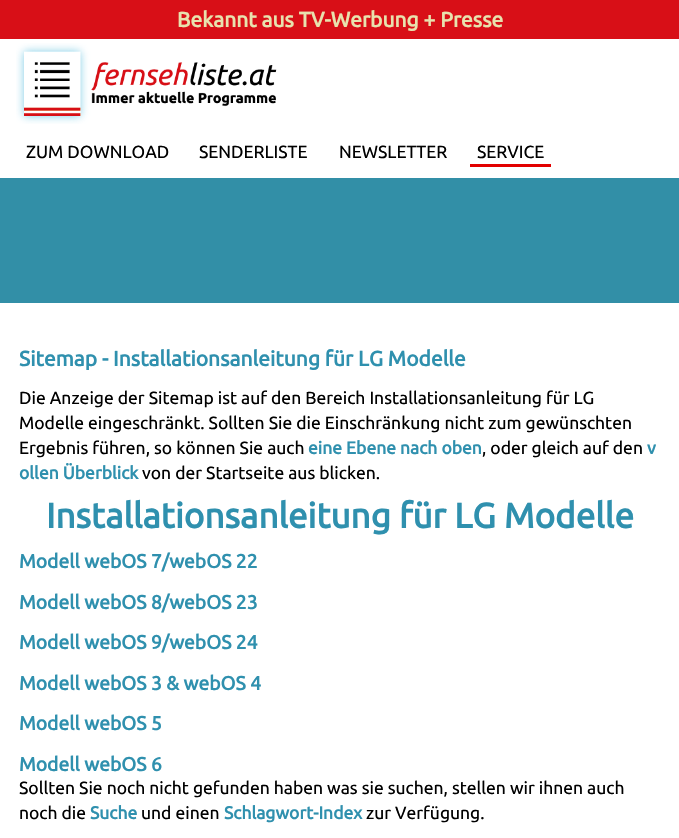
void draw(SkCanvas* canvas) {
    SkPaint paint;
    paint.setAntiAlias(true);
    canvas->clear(0xFFFFFFFF);
    paint.setColor(0xFFD80F17);
    canvas->drawRect(SkRect::MakeXYWH(0, 0, 679, 39), paint);
    SkFont font1(fontMgr->matchFamilyStyle("Ubuntu", SkFontStyle::Bold()), 21);
    font1.setSubpixel(true);
    paint.setColor(0xFFE8E2AE);
    canvas->drawString("Bekannt aus TV-Werbung + Presse", 177, 27, font1, paint);
    canvas->drawImageRect(SkImages::DeferredFromEncodedData(SkData::MakeFromFileName("img1.png")), SkRect::MakeXYWH(16, 43, 261, 81), SkSamplingOptions());
    SkFont font2(fontMgr->matchFamilyStyle("Ubuntu", SkFontStyle::Normal()), 17.5f);
    font2.setSubpixel(true);
    paint.setColor(0xFF000000);
    canvas->drawString("ZUM DOWNLOAD", 26, 158, font2, paint);
    canvas->drawString("SENDERLISTE", 199, 158, font2, paint);
    canvas->drawString("NEWSLETTER", 339, 158, font2, paint);
    paint.setColor(0xFFE20000);
    canvas->drawRect(SkRect::MakeXYWH(470, 164, 81, 3), paint);
    paint.setColor(0xFF000000);
    canvas->drawString("SERVICE", 477, 158, font2, paint);
    paint.setColor(0xFF328FA7);
    canvas->drawRect(SkRect::MakeXYWH(0, 178, 679, 125), paint);
    paint.setColor(0xFF2F90AE);
    canvas->drawString("Sitemap - Installationsanleitung für LG Modelle", 19, 366, font1, paint);
    paint.setColor(0xFF000000);
    canvas->drawString("Die Anzeige der Sitemap ist auf den Bereich Installationsanleitung für LG", 19, 404, font2, paint);
    canvas->drawString("Modelle eingeschränkt. Sollten Sie die Einschränkung nicht zum gewünschten", 19, 429, font2, paint);
    canvas->drawString("Ergebnis führen, so können Sie auch", 19, 454, font2, paint);
    SkFont font3(fontMgr->matchFamilyStyle("Ubuntu", SkFontStyle::Bold()), 17.5f);
    font3.setSubpixel(true);
    paint.setColor(0xFF2F90AE);
    canvas->drawString("eine Ebene nach oben", 308, 454, font3, paint);
    paint.setColor(0xFF000000);
    canvas->drawString(", oder gleich auf den", 482, 454, font2, paint);
    paint.setColor(0xFF2F90AE);
    canvas->drawString("v", 647, 454, font3, paint);
    canvas->drawString("ollen Überblick", 19, 479, font3, paint);
    paint.setColor(0xFF000000);
    canvas->drawString("von der Startseite aus blicken.", 142, 479, font2, paint);
    SkFont font4(fontMgr->matchFamilyStyle("Ubuntu", SkFontStyle::Bold()), 35);
    font4.setSubpixel(true);
    paint.setColor(0xFF2F90AE);
    canvas->drawString("Installationsanleitung für LG Modelle", 46, 528, font4, paint);
    SkFont font5(fontMgr->matchFamilyStyle("Ubuntu", SkFontStyle::Bold()), 19.25f);
    font5.setSubpixel(true);
    canvas->drawString("Modell webOS 7/webOS 22", 19, 568, font5, paint);
    canvas->drawString("Modell webOS 8/webOS 23", 19, 609, font5, paint);
    canvas->drawString("Modell webOS 9/webOS 24", 19, 649, font5, paint);
    canvas->drawString("Modell webOS 3 & webOS 4", 19, 690, font5, paint);
    canvas->drawString("Modell webOS 5", 19, 730, font5, paint);
    canvas->drawString("Modell webOS 6", 19, 771, font5, paint);
    paint.setColor(0xFF000000);
    canvas->drawString("Sollten Sie noch nicht gefunden haben was sie suchen, stellen wir ihnen auch", 19, 794, font2, paint);
    canvas->drawString("noch die", 19, 819, font2, paint);
    paint.setColor(0xFF2F90AE);
    canvas->drawString("Suche", 90, 819, font3, paint);
    paint.setColor(0xFF000000);
    canvas->drawString("und einen", 141, 819, font2, paint);
    paint.setColor(0xFF2F90AE);
    canvas->drawString("Schlagwort-Index", 224, 819, font3, paint);
    paint.setColor(0xFF000000);
    canvas->drawString("zur Verfügung.", 366, 819, font2, paint);
}
